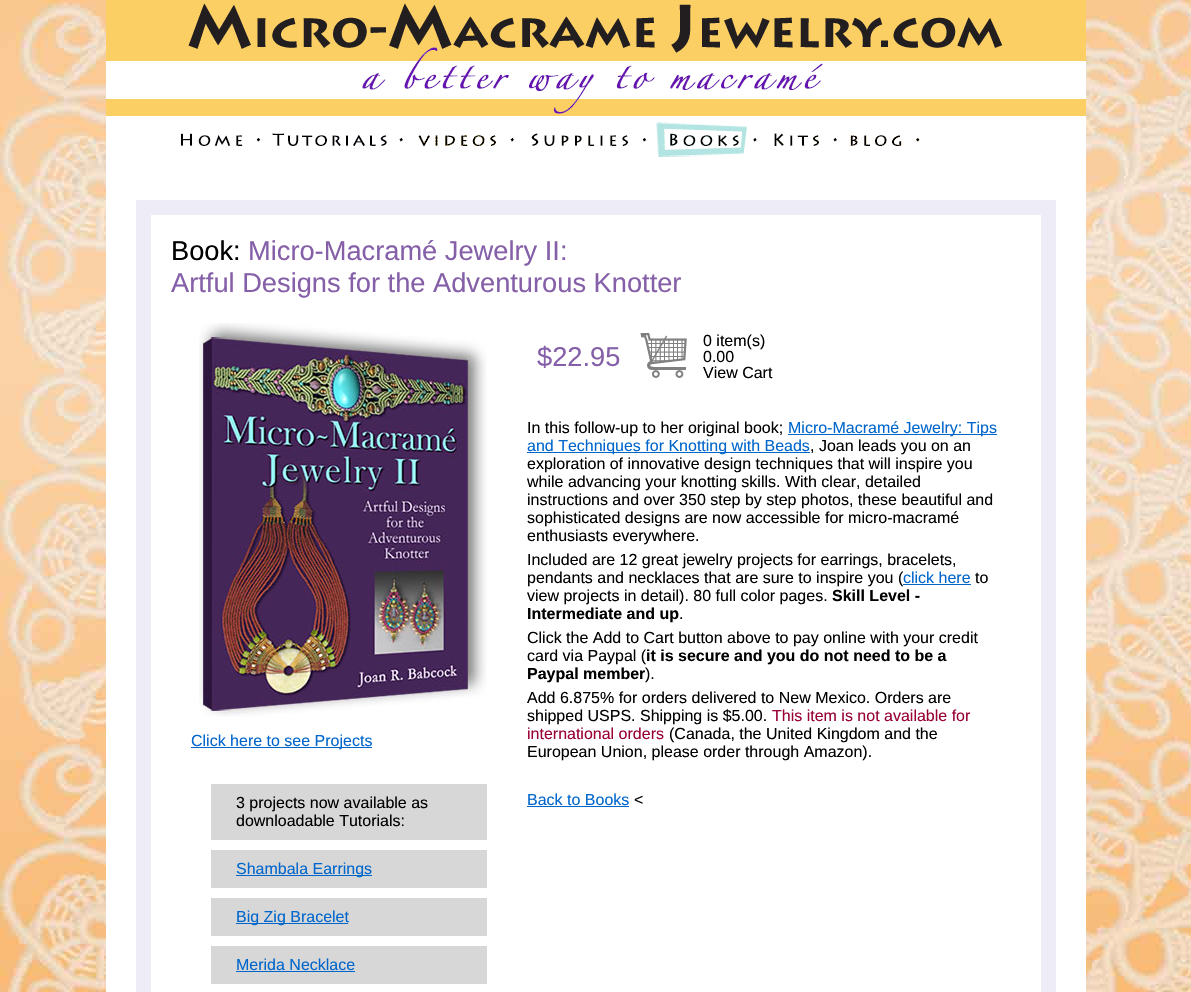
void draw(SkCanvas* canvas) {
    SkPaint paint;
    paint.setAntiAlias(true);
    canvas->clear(0xFFFFFFFF);
    canvas->drawImageRect(SkImages::DeferredFromEncodedData(SkData::MakeFromFileName("img1.png")), SkRect::MakeXYWH(0, 0, 1191, 992), SkSamplingOptions());
    paint.setColor(0xFFFFFFFF);
    canvas->drawRect(SkRect::MakeXYWH(106, 116, 980, 876), paint);
    canvas->drawImageRect(SkImages::DeferredFromEncodedData(SkData::MakeFromFileName("img2.png")), SkRect::MakeXYWH(106, 0, 980, 116), SkSamplingOptions());
    canvas->drawImageRect(SkImages::DeferredFromEncodedData(SkData::MakeFromFileName("img3.png")), SkRect::MakeXYWH(181, 133, 80, 13), SkSamplingOptions());
    canvas->drawImageRect(SkImages::DeferredFromEncodedData(SkData::MakeFromFileName("img4.png")), SkRect::MakeXYWH(272, 133, 131, 13), SkSamplingOptions());
    canvas->drawImageRect(SkImages::DeferredFromEncodedData(SkData::MakeFromFileName("img5.png")), SkRect::MakeXYWH(418, 135, 96, 11), SkSamplingOptions());
    canvas->drawImageRect(SkImages::DeferredFromEncodedData(SkData::MakeFromFileName("img6.png")), SkRect::MakeXYWH(531, 133, 116, 13), SkSamplingOptions());
    canvas->drawImageRect(SkImages::DeferredFromEncodedData(SkData::MakeFromFileName("img7.png")), SkRect::MakeXYWH(656, 122, 101, 35), SkSamplingOptions());
    canvas->drawImageRect(SkImages::DeferredFromEncodedData(SkData::MakeFromFileName("img8.png")), SkRect::MakeXYWH(774, 133, 63, 13), SkSamplingOptions());
    canvas->drawImageRect(SkImages::DeferredFromEncodedData(SkData::MakeFromFileName("img9.png")), SkRect::MakeXYWH(850, 135, 70, 11), SkSamplingOptions());
    paint.setStyle(SkPaint::kStroke_Style);
    paint.setStrokeWidth(15);
    paint.setColor(0xFFEDECF7);
    canvas->drawRect(SkRect::MakeXYWH(143.5f, 207.5f, 905, 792), paint);
    SkFont font1(fontMgr->matchFamilyStyle("Liberation Sans", SkFontStyle::Normal()), 27.25f);
    font1.setSubpixel(true);
    paint.setStyle(SkPaint::kFill_Style);
    paint.setColor(0xFF000000);
    canvas->drawString("Book:", 171, 260, font1, paint);
    paint.setColor(0xFF855FA8);
    canvas->drawString("Micro-Macramé Jewelry II:", 248, 260, font1, paint);
    canvas->drawString("Artful Designs for the Adventurous Knotter", 171, 292, font1, paint);
    canvas->drawString("$22.95", 537, 366, font1, paint);
    canvas->drawImageRect(SkImages::DeferredFromEncodedData(SkData::MakeFromFileName("img10.png")), SkRect::MakeXYWH(640, 333, 47, 45), SkSamplingOptions());
    SkFont font2(fontMgr->matchFamilyStyle("Liberation Sans", SkFontStyle::Normal()), 16);
    font2.setSubpixel(true);
    paint.setColor(0xFF000000);
    canvas->drawString("0 item(s)", 703, 346, font2, paint);
    canvas->drawString("0.00", 703, 362, font2, paint);
    canvas->drawString("View Cart", 703, 378, font2, paint);
    canvas->drawString("In this follow-up to her original book;", 527, 433, font2, paint);
    paint.setColor(0xFF0066CC);
    canvas->drawRect(SkRect::MakeXYWH(788, 434, 209, 1), paint);
    canvas->drawString("Micro-Macramé Jewelry: Tips", 788, 433, font2, paint);
    canvas->drawRect(SkRect::MakeXYWH(527, 452, 283, 1), paint);
    canvas->drawString("and Techniques for Knotting with Beads", 527, 451, font2, paint);
    paint.setColor(0xFF000000);
    canvas->drawString(", Joan leads you on an", 810, 451, font2, paint);
    canvas->drawString("exploration of innovative design techniques that will inspire you", 527, 469, font2, paint);
    canvas->drawString("while advancing your knotting skills. With clear, detailed", 527, 487, font2, paint);
    canvas->drawString("instructions and over 350 step by step photos, these beautiful and", 527, 505, font2, paint);
    canvas->drawString("sophisticated designs are now accessible for micro-macramé", 527, 523, font2, paint);
    canvas->drawString("enthusiasts everywhere.", 527, 541, font2, paint);
    canvas->drawString("Included are 12 great jewelry projects for earrings, bracelets,", 527, 565, font2, paint);
    canvas->drawString("pendants and necklaces that are sure to inspire you (", 527, 583, font2, paint);
    paint.setColor(0xFF0066CC);
    canvas->drawString("click here", 903, 583, font2, paint);
    canvas->drawRect(SkRect::MakeXYWH(903, 584, 68, 1), paint);
    paint.setColor(0xFF000000);
    canvas->drawString("to", 975, 583, font2, paint);
    canvas->drawString("view projects in detail). 80 full color pages.", 527, 601, font2, paint);
    SkFont font3(fontMgr->matchFamilyStyle("Liberation Sans", SkFontStyle::Bold()), 16);
    font3.setSubpixel(true);
    canvas->drawString("Skill Level -", 832, 601, font3, paint);
    canvas->drawString("Intermediate and up", 527, 619, font3, paint);
    canvas->drawString(".", 679, 619, font2, paint);
    canvas->drawString("Click the Add to Cart button above to pay online with your credit", 527, 643, font2, paint);
    canvas->drawString("card via Paypal (", 527, 661, font2, paint);
    canvas->drawString("it is secure and you do not need to be a", 646, 661, font3, paint);
    canvas->drawString("Paypal member", 527, 679, font3, paint);
    canvas->drawString(").", 645, 679, font2, paint);
    canvas->drawString("Add 6.875% for orders delivered to New Mexico. Orders are", 527, 703, font2, paint);
    canvas->drawString("shipped USPS. Shipping is $5.00.", 527, 721, font2, paint);
    paint.setColor(0xFF990033);
    canvas->drawString("This item is not available for", 772, 721, font2, paint);
    canvas->drawString("international orders", 527, 739, font2, paint);
    paint.setColor(0xFF000000);
    canvas->drawString("(Canada, the United Kingdom and the", 669, 739, font2, paint);
    canvas->drawString("European Union, please order through Amazon).", 527, 757, font2, paint);
    paint.setColor(0xFF0066CC);
    canvas->drawString("Back to Books", 527, 805, font2, paint);
    canvas->drawRect(SkRect::MakeXYWH(527, 806, 102, 1), paint);
    paint.setColor(0xFF000000);
    canvas->drawString("<", 634, 805, font2, paint);
    canvas->drawImageRect(SkImages::DeferredFromEncodedData(SkData::MakeFromFileName("img11.png")), SkRect::MakeXYWH(199, 323, 288, 394), SkSamplingOptions());
    paint.setColor(0xFF0066CC);
    canvas->drawRect(SkRect::MakeXYWH(191, 747, 181, 1), paint);
    canvas->drawString("Click here to see Projects", 191, 746, font2, paint);
    paint.setColor(0xFFD7D7D7);
    canvas->drawRect(SkRect::MakeXYWH(211, 784, 276, 56), paint);
    paint.setColor(0xFF000000);
    canvas->drawString("3 projects now available as", 236, 808, font2, paint);
    canvas->drawString("downloadable Tutorials:", 236, 826, font2, paint);
    paint.setColor(0xFFD7D7D7);
    canvas->drawRect(SkRect::MakeXYWH(211, 850, 276, 38), paint);
    paint.setColor(0xFF0066CC);
    canvas->drawRect(SkRect::MakeXYWH(236, 875, 136, 1), paint);
    canvas->drawString("Shambala Earrings", 236, 874, font2, paint);
    paint.setColor(0xFFD7D7D7);
    canvas->drawRect(SkRect::MakeXYWH(211, 898, 276, 38), paint);
    paint.setColor(0xFF0066CC);
    canvas->drawRect(SkRect::MakeXYWH(236, 923, 112, 1), paint);
    canvas->drawString("Big Zig Bracelet", 236, 922, font2, paint);
    paint.setColor(0xFFD7D7D7);
    canvas->drawRect(SkRect::MakeXYWH(211, 946, 276, 38), paint);
    paint.setColor(0xFF0066CC);
    canvas->drawString("Merida Necklace", 236, 970, font2, paint);
    canvas->drawRect(SkRect::MakeXYWH(236, 971, 119, 1), paint);
}
